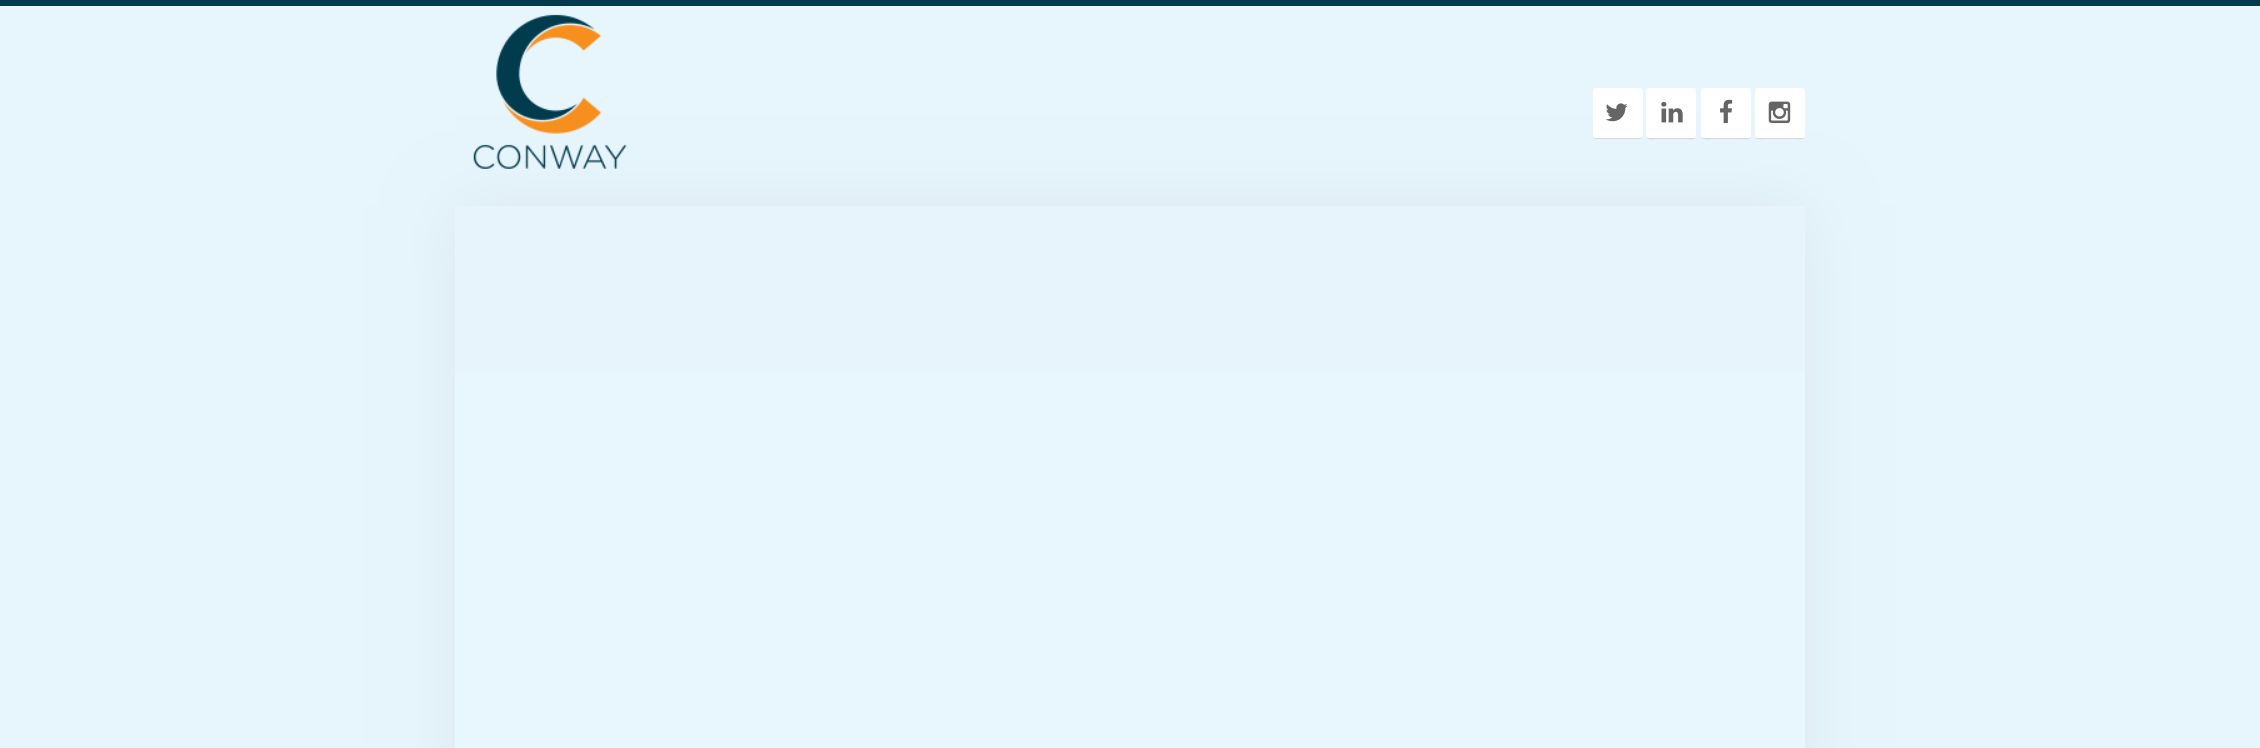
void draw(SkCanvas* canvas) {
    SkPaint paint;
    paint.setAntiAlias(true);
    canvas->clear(0xFFE7F5FC);
    paint.setColor(0xFF003B4D);
    canvas->drawRect(SkRect::MakeXYWH(0, 0, 2260, 6), paint);
    paint.setColor(0x0D000000);
    paint.setMaskFilter(SkMaskFilter::MakeBlur(kNormal_SkBlurStyle, 31));
    canvas->drawRect(SkRect::MakeXYWH(455, 206, 1350, 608), paint);
    paint.setMaskFilter(nullptr);
    canvas->drawImageRect(SkImages::DeferredFromEncodedData(SkData::MakeFromFileName("img1.png")), SkRect::MakeXYWH(473, 14, 154, 155), SkSamplingOptions());
    paint.setColor(0xFFD0DCE3);
    canvas->drawPath(SkPathBuilder().moveTo(1593, 136).cubicTo(1593, 138, 1594, 139, 1596, 139).lineTo(1640, 139).cubicTo(1642, 139, 1643, 138, 1643, 136).lineTo(1643, 92).lineTo(1642, 90).lineTo(1642, 135).cubicTo(1642, 136, 1641, 138, 1640, 138).lineTo(1595, 138).cubicTo(1594, 138, 1593, 137, 1593, 136).close().detach(), paint);
    paint.setColor(0xFFFFFFFF);
    canvas->drawRoundRect(SkRect::MakeXYWH(1593, 88, 50, 50), 2.5f, 2.5f, paint);
    canvas->drawImageRect(SkImages::DeferredFromEncodedData(SkData::MakeFromFileName("img2.png")), SkRect::MakeXYWH(1605, 103, 23, 19), SkSamplingOptions());
    paint.setColor(0xFFD0DCE3);
    canvas->drawPath(SkPathBuilder().moveTo(1646, 90).lineTo(1646, 136).cubicTo(1646, 141, 1655, 139, 1656, 139).lineTo(1686, 139).cubicTo(1688, 139, 1696, 141, 1696, 136).cubicTo(1696, 137, 1695, 138, 1694, 138).lineTo(1649, 138).cubicTo(1647, 138, 1646, 136, 1646, 135).close().detach(), paint);
    paint.setColor(0xFFFFFFFF);
    canvas->drawRoundRect(SkRect::MakeXYWH(1646, 88, 50, 50), 2.5f, 2.5f, paint);
    canvas->drawImageRect(SkImages::DeferredFromEncodedData(SkData::MakeFromFileName("img3.png")), SkRect::MakeXYWH(1661, 101, 22, 22), SkSamplingOptions());
    paint.setColor(0xFFD0DCE3);
    canvas->drawPath(SkPathBuilder().moveTo(1701, 90).lineTo(1701, 136).cubicTo(1701, 141, 1710, 139, 1711, 139).lineTo(1741, 139).cubicTo(1743, 139, 1751, 141, 1751, 136).cubicTo(1751, 137, 1750, 138, 1749, 138).lineTo(1704, 138).cubicTo(1702, 138, 1701, 136, 1701, 135).close().detach(), paint);
    paint.setColor(0xFFFFFFFF);
    canvas->drawRoundRect(SkRect::MakeXYWH(1701, 88, 50, 50), 2.5f, 2.5f, paint);
    canvas->drawImageRect(SkImages::DeferredFromEncodedData(SkData::MakeFromFileName("img4.png")), SkRect::MakeXYWH(1720, 99, 13, 25), SkSamplingOptions());
    paint.setColor(0xFFD0DCE3);
    canvas->drawPath(SkPathBuilder().moveTo(1755, 135).cubicTo(1755, 141, 1760, 139, 1765, 139).lineTo(1795, 139).cubicTo(1800, 139, 1805, 141, 1805, 135).cubicTo(1805, 136, 1804, 138, 1802, 138).lineTo(1758, 138).cubicTo(1756, 138, 1755, 136, 1755, 135).close().detach(), paint);
    paint.setColor(0xFFFFFFFF);
    canvas->drawRoundRect(SkRect::MakeXYWH(1755, 88, 50, 50), 2.5f, 2.5f, paint);
    canvas->drawImageRect(SkImages::DeferredFromEncodedData(SkData::MakeFromFileName("img5.png")), SkRect::MakeXYWH(1768, 101, 23, 23), SkSamplingOptions());
    paint.setColor(0xFFE8F4FC);
    canvas->drawRect(SkRect::MakeXYWH(455, 206, 1350, 165), paint);
    paint.setColor(0xFFE8F6FE);
    canvas->drawRect(SkRect::MakeXYWH(455, 371, 1350, 377), paint);
}
